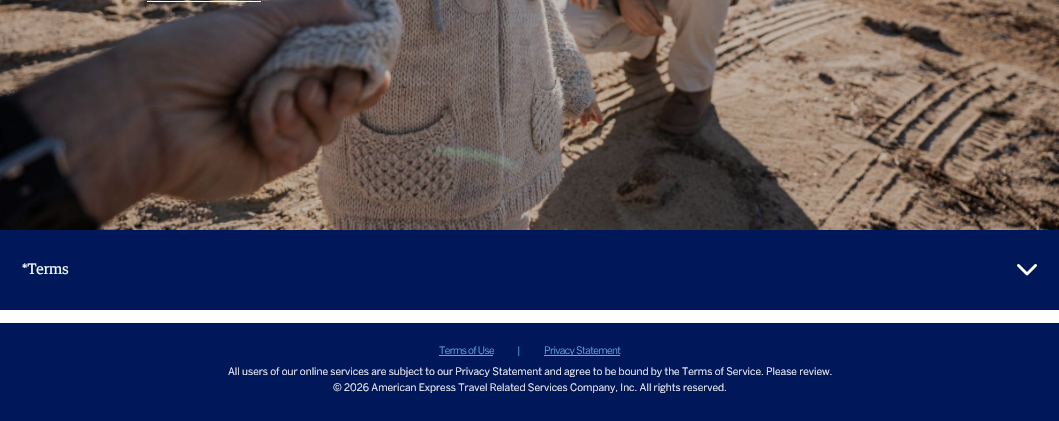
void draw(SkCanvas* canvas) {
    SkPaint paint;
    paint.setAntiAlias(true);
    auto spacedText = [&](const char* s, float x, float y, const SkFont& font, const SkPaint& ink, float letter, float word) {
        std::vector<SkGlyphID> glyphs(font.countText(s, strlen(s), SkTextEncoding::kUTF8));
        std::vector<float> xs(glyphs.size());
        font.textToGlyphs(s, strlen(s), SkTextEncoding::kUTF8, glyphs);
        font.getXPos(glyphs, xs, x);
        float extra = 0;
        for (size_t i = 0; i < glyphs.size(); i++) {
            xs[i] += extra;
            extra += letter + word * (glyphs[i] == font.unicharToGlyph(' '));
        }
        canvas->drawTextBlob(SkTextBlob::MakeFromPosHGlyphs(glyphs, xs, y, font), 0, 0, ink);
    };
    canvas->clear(0xFFFFFFFF);
    canvas->drawImageRect(SkImages::DeferredFromEncodedData(SkData::MakeFromFileName("img1.png")), SkRect::MakeXYWH(0, 0, 1059, 230), SkSamplingOptions());
    paint.setColor(0xFFFFFFFF);
    canvas->drawRect(SkRect::MakeXYWH(147, 1, 114, 1), paint);
    paint.setColor(0xFF00175A);
    canvas->drawRect(SkRect::MakeXYWH(0, 230, 1059, 80), paint);
    SkFont font1(fontMgr->matchFamilyStyle("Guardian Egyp", SkFontStyle::Normal()), 15);
    font1.setSubpixel(true);
    paint.setColor(0xFFFFFFFF);
    canvas->drawString("*Terms", 22, 274, font1, paint);
    canvas->drawImageRect(SkImages::DeferredFromEncodedData(SkData::MakeFromFileName("img2.png")), SkRect::MakeXYWH(1017, 264, 20, 12), SkSamplingOptions());
    paint.setColor(0xFF00175A);
    canvas->drawRect(SkRect::MakeXYWH(0, 323, 1059, 98), paint);
    SkFont font2(fontMgr->matchFamilyStyle("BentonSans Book", SkFontStyle::Normal()), 10.2f);
    font2.setSubpixel(true);
    paint.setColor(0xFF66A9E2);
    spacedText("Terms of Use", 439, 354, font2, paint, -0.6f, 0);
    canvas->drawRect(SkRect::MakeXYWH(439, 355, 54, 1), paint);
    spacedText("|", 517, 354, font2, paint, -0.6f, 0);
    canvas->drawRect(SkRect::MakeXYWH(544, 355, 76, 1), paint);
    spacedText("Privacy Statement", 544, 354, font2, paint, -0.6f, 0);
    paint.setColor(0xFFFFFFFF);
    canvas->drawString("All users of our online services are subject to our Privacy Statement and agree to be bound by the Terms of Service. Please review.", 228, 375, font2, paint);
    canvas->drawString("© 2026 American Express Travel Related Services Company, Inc. All rights reserved.", 333, 391, font2, paint);
}
